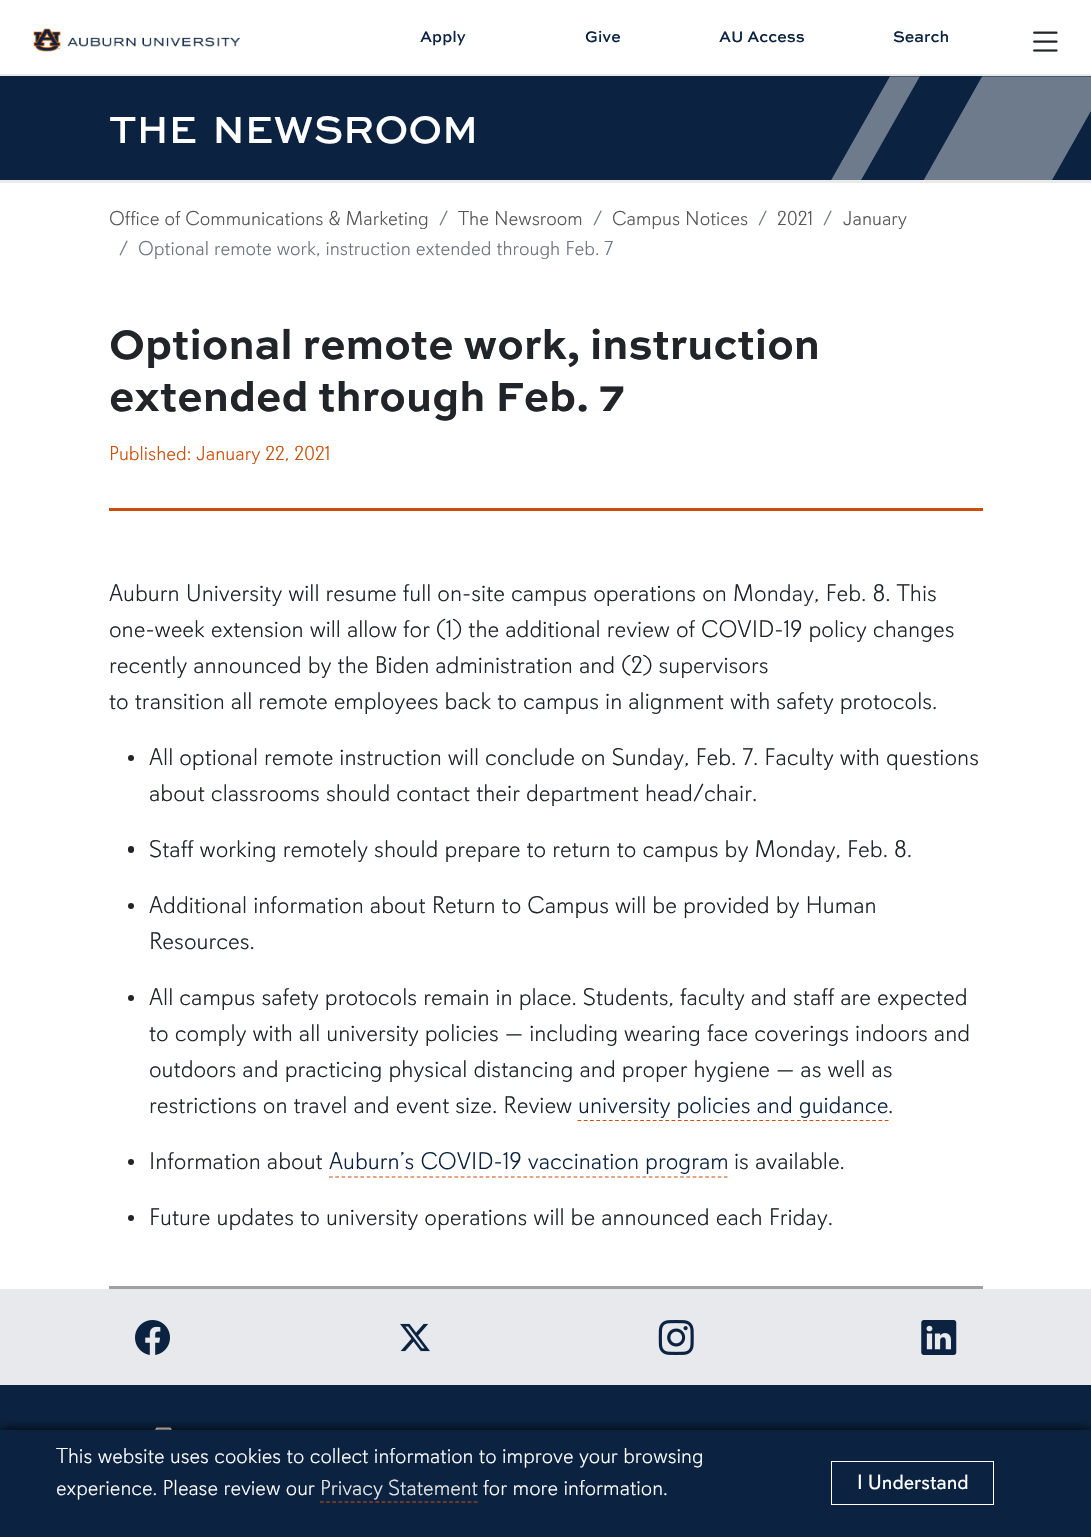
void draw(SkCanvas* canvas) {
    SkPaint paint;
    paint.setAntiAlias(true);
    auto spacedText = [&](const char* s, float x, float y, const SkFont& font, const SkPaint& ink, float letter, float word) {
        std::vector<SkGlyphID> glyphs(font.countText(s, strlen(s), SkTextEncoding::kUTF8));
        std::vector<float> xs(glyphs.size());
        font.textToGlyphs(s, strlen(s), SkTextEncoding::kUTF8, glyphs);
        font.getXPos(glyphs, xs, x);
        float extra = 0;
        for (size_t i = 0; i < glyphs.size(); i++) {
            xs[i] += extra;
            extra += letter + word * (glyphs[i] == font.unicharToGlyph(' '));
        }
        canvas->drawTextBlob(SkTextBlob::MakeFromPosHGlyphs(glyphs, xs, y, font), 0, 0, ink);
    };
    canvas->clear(0xFFFFFFFF);
    paint.setColor(0xFFEAEAEA);
    canvas->drawRect(SkRect::MakeXYWH(0, 74, 1091, 2), paint);
    canvas->drawImageRect(SkImages::DeferredFromEncodedData(SkData::MakeFromFileName("img1.png")), SkRect::MakeXYWH(33, 28, 207, 24), SkSamplingOptions());
    SkFont font1(fontMgr->matchFamilyStyle("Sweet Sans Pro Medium", SkFontStyle(500, SkFontStyle::kNormal_Width, SkFontStyle::kUpright_Slant)), 16);
    font1.setSubpixel(true);
    paint.setColor(0xFF0B2341);
    canvas->drawString("Apply", 420, 42, font1, paint);
    canvas->drawString("Give", 585, 42, font1, paint);
    canvas->drawString("AU Access", 719, 42, font1, paint);
    canvas->drawString("Search", 893, 42, font1, paint);
    canvas->drawImageRect(SkImages::DeferredFromEncodedData(SkData::MakeFromFileName("img2.png")), SkRect::MakeXYWH(1033, 31, 25, 21), SkSamplingOptions());
    canvas->drawRect(SkRect::MakeXYWH(0, 76, 1091, 104), paint);
    paint.setColor(0xFFEAEAEA);
    canvas->drawRect(SkRect::MakeXYWH(0, 180, 1091, 3), paint);
    SkFont font2(fontMgr->matchFamilyStyle("Sweet Sans Pro Medium", SkFontStyle(500, SkFontStyle::kNormal_Width, SkFontStyle::kUpright_Slant)), 40);
    font2.setSubpixel(true);
    paint.setColor(0xFFFFFFFF);
    spacedText("THE NEWSROOM", 109, 143, font2, paint, 0, 6);
    canvas->drawImageRect(SkImages::DeferredFromEncodedData(SkData::MakeFromFileName("img3.png")), SkRect::MakeXYWH(831, 76, 260, 104), SkSamplingOptions());
    SkFont font3(fontMgr->matchFamilyStyle("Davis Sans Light", SkFontStyle(300, SkFontStyle::kNormal_Width, SkFontStyle::kUpright_Slant)), 20);
    font3.setSubpixel(true);
    paint.setColor(0xFF565656);
    canvas->drawString("Office of Communications & Marketing", 109, 225, font3, paint);
    paint.setColor(0xFF6C757D);
    canvas->drawString("/", 439, 225, font3, paint);
    paint.setColor(0xFF565656);
    canvas->drawString("The Newsroom", 458, 225, font3, paint);
    paint.setColor(0xFF6C757D);
    canvas->drawString("/", 593, 225, font3, paint);
    paint.setColor(0xFF565656);
    canvas->drawString("Campus Notices", 612, 225, font3, paint);
    paint.setColor(0xFF6C757D);
    canvas->drawString("/", 758, 225, font3, paint);
    paint.setColor(0xFF565656);
    canvas->drawString("2021", 777, 225, font3, paint);
    paint.setColor(0xFF6C757D);
    canvas->drawString("/", 823, 225, font3, paint);
    paint.setColor(0xFF565656);
    canvas->drawString("January", 843, 225, font3, paint);
    paint.setColor(0xFF6C757D);
    canvas->drawString("/", 119, 255, font3, paint);
    canvas->drawString("Optional remote work, instruction extended through Feb. 7", 138, 255, font3, paint);
    SkFont font4(fontMgr->matchFamilyStyle("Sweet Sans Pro", SkFontStyle::Bold()), 43);
    font4.setSubpixel(true);
    paint.setColor(0xFF212529);
    canvas->drawString("Optional remote work, instruction", 109, 359, font4, paint);
    canvas->drawString("extended through Feb. 7", 109, 411, font4, paint);
    paint.setColor(0xFFCC4E0B);
    canvas->drawString("Published: January 22, 2021", 109, 460, font3, paint);
    canvas->drawRect(SkRect::MakeXYWH(109, 508, 874, 3), paint);
    SkFont font5(fontMgr->matchFamilyStyle("Davis Sans Light", SkFontStyle(300, SkFontStyle::kNormal_Width, SkFontStyle::kUpright_Slant)), 24);
    font5.setSubpixel(true);
    paint.setColor(0xFF212529);
    canvas->drawString("Auburn University will resume full on-site campus operations on Monday, Feb. 8. This", 109, 601, font5, paint);
    canvas->drawString("one-week extension will allow for (1) the additional review of COVID-19 policy changes", 109, 637, font5, paint);
    canvas->drawString("recently announced by the Biden administration and (2) supervisors", 109, 673, font5, paint);
    canvas->drawString("to transition all remote employees back to campus in alignment with safety protocols.", 109, 709, font5, paint);
    canvas->drawCircle(131, 758, 3, paint);
    canvas->drawString("All optional remote instruction will conclude on Sunday, Feb. 7. Faculty with questions", 149, 765, font5, paint);
    canvas->drawString("about classrooms should contact their department head/chair.", 149, 801, font5, paint);
    canvas->drawRoundRect(SkRect::MakeXYWH(128, 846, 6, 7), 3, 3, paint);
    canvas->drawString("Staff working remotely should prepare to return to campus by Monday, Feb. 8.", 149, 857, font5, paint);
    canvas->drawCircle(131, 906, 3, paint);
    canvas->drawString("Additional information about Return to Campus will be provided by Human", 149, 913, font5, paint);
    canvas->drawString("Resources.", 149, 949, font5, paint);
    canvas->drawCircle(131, 998, 3, paint);
    canvas->drawString("All campus safety protocols remain in place. Students, faculty and staff are expected", 149, 1005, font5, paint);
    canvas->drawString("to comply with all university policies — including wearing face coverings indoors and", 149, 1041, font5, paint);
    canvas->drawString("outdoors and practicing physical distancing and proper hygiene — as well as", 149, 1077, font5, paint);
    canvas->drawString("restrictions on travel and event size. Review", 149, 1113, font5, paint);
    paint.setColor(0xFF0B2341);
    canvas->drawString("university policies and guidance", 578, 1113, font5, paint);
    paint.setStyle(SkPaint::kStroke_Style);
    paint.setStrokeWidth(1.2f);
    paint.setColor(0xFFCC4E0B);
    paint.setPathEffect(SkDashPathEffect::Make({{3.75f, 2.52f}}, 0));
    canvas->drawPath(SkPathBuilder().moveTo(577.5f, 1120.5f).lineTo(889, 1120.5f).detach(), paint);
    paint.setPathEffect(nullptr);
    paint.setStyle(SkPaint::kFill_Style);
    paint.setColor(0xFF212529);
    canvas->drawString(".", 888, 1113, font5, paint);
    canvas->drawCircle(131, 1162, 3, paint);
    canvas->drawString("Information about", 149, 1169, font5, paint);
    paint.setColor(0xFF0B2341);
    canvas->drawString("Auburn’s COVID-19 vaccination program", 329, 1169, font5, paint);
    paint.setStyle(SkPaint::kStroke_Style);
    paint.setColor(0xFFCC4E0B);
    paint.setPathEffect(SkDashPathEffect::Make({{3.75f, 2.52f}}, 0));
    canvas->drawPath(SkPathBuilder().moveTo(329, 1177).lineTo(727.5f, 1177).detach(), paint);
    paint.setPathEffect(nullptr);
    paint.setStyle(SkPaint::kFill_Style);
    paint.setColor(0xFF212529);
    canvas->drawString("is available.", 734, 1169, font5, paint);
    canvas->drawCircle(131, 1218, 3, paint);
    canvas->drawString("Future updates to university operations will be announced each Friday.", 149, 1225, font5, paint);
    paint.setColor(0xFFA1A1A1);
    canvas->drawRect(SkRect::MakeXYWH(109, 1286, 874, 3), paint);
    paint.setColor(0xFF0B2341);
    canvas->drawRect(SkRect::MakeXYWH(0, 1385, 1091, 45), paint);
    paint.setColor(0xFFE7E9EC);
    canvas->drawRect(SkRect::MakeXYWH(0, 1289, 1091, 96), paint);
    canvas->drawImageRect(SkImages::DeferredFromEncodedData(SkData::MakeFromFileName("img4.png")), SkRect::MakeXYWH(135, 1320, 35, 35), SkSamplingOptions());
    canvas->drawImageRect(SkImages::DeferredFromEncodedData(SkData::MakeFromFileName("img5.png")), SkRect::MakeXYWH(400, 1323, 30, 29), SkSamplingOptions());
    canvas->drawImageRect(SkImages::DeferredFromEncodedData(SkData::MakeFromFileName("img6.png")), SkRect::MakeXYWH(658, 1320, 36, 35), SkSamplingOptions());
    canvas->drawImageRect(SkImages::DeferredFromEncodedData(SkData::MakeFromFileName("img7.png")), SkRect::MakeXYWH(921, 1320, 36, 35), SkSamplingOptions());
    canvas->drawImageRect(SkImages::DeferredFromEncodedData(SkData::MakeFromFileName("img8.png")), SkRect::MakeXYWH(155, 1427, 17, 3), SkSamplingOptions());
    paint.setColor(0xFF000000);
    paint.setMaskFilter(SkMaskFilter::MakeBlur(kNormal_SkBlurStyle, 6));
    canvas->drawRect(SkRect::MakeXYWH(0, 1430, 1091, 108), paint);
    paint.setMaskFilter(nullptr);
    paint.setColor(0xFF0B2341);
    canvas->drawRect(SkRect::MakeXYWH(0, 1430, 1091, 107), paint);
    SkFont font6(fontMgr->matchFamilyStyle("Davis Sans Light", SkFontStyle(300, SkFontStyle::kNormal_Width, SkFontStyle::kUpright_Slant)), 21.6f);
    font6.setSubpixel(true);
    paint.setColor(0xFFFFFFFF);
    canvas->drawString("This website uses cookies to collect information to improve your browsing", 56, 1463, font6, paint);
    canvas->drawString("experience. Please review our", 56, 1495, font6, paint);
    paint.setColor(0xFFEAEAEA);
    canvas->drawString("Privacy Statement", 320, 1495, font6, paint);
    paint.setStyle(SkPaint::kStroke_Style);
    paint.setColor(0xFFCC4E0B);
    paint.setPathEffect(SkDashPathEffect::Make({{3.75f, 2.4f}}, 0));
    canvas->drawPath(SkPathBuilder().moveTo(320, 1502).lineTo(477.5f, 1502).detach(), paint);
    paint.setPathEffect(nullptr);
    paint.setStyle(SkPaint::kFill_Style);
    paint.setColor(0xFFFFFFFF);
    canvas->drawString("for more information.", 483, 1495, font6, paint);
    paint.setStyle(SkPaint::kStroke_Style);
    paint.setStrokeWidth(1);
    canvas->drawRect(SkRect::MakeXYWH(831.5f, 1461.5f, 162, 43), paint);
    SkFont font7(fontMgr->matchFamilyStyle("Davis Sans", SkFontStyle::Normal()), 20.5f);
    font7.setSubpixel(true);
    paint.setStyle(SkPaint::kFill_Style);
    canvas->drawString("I Understand", 857, 1489, font7, paint);
}
